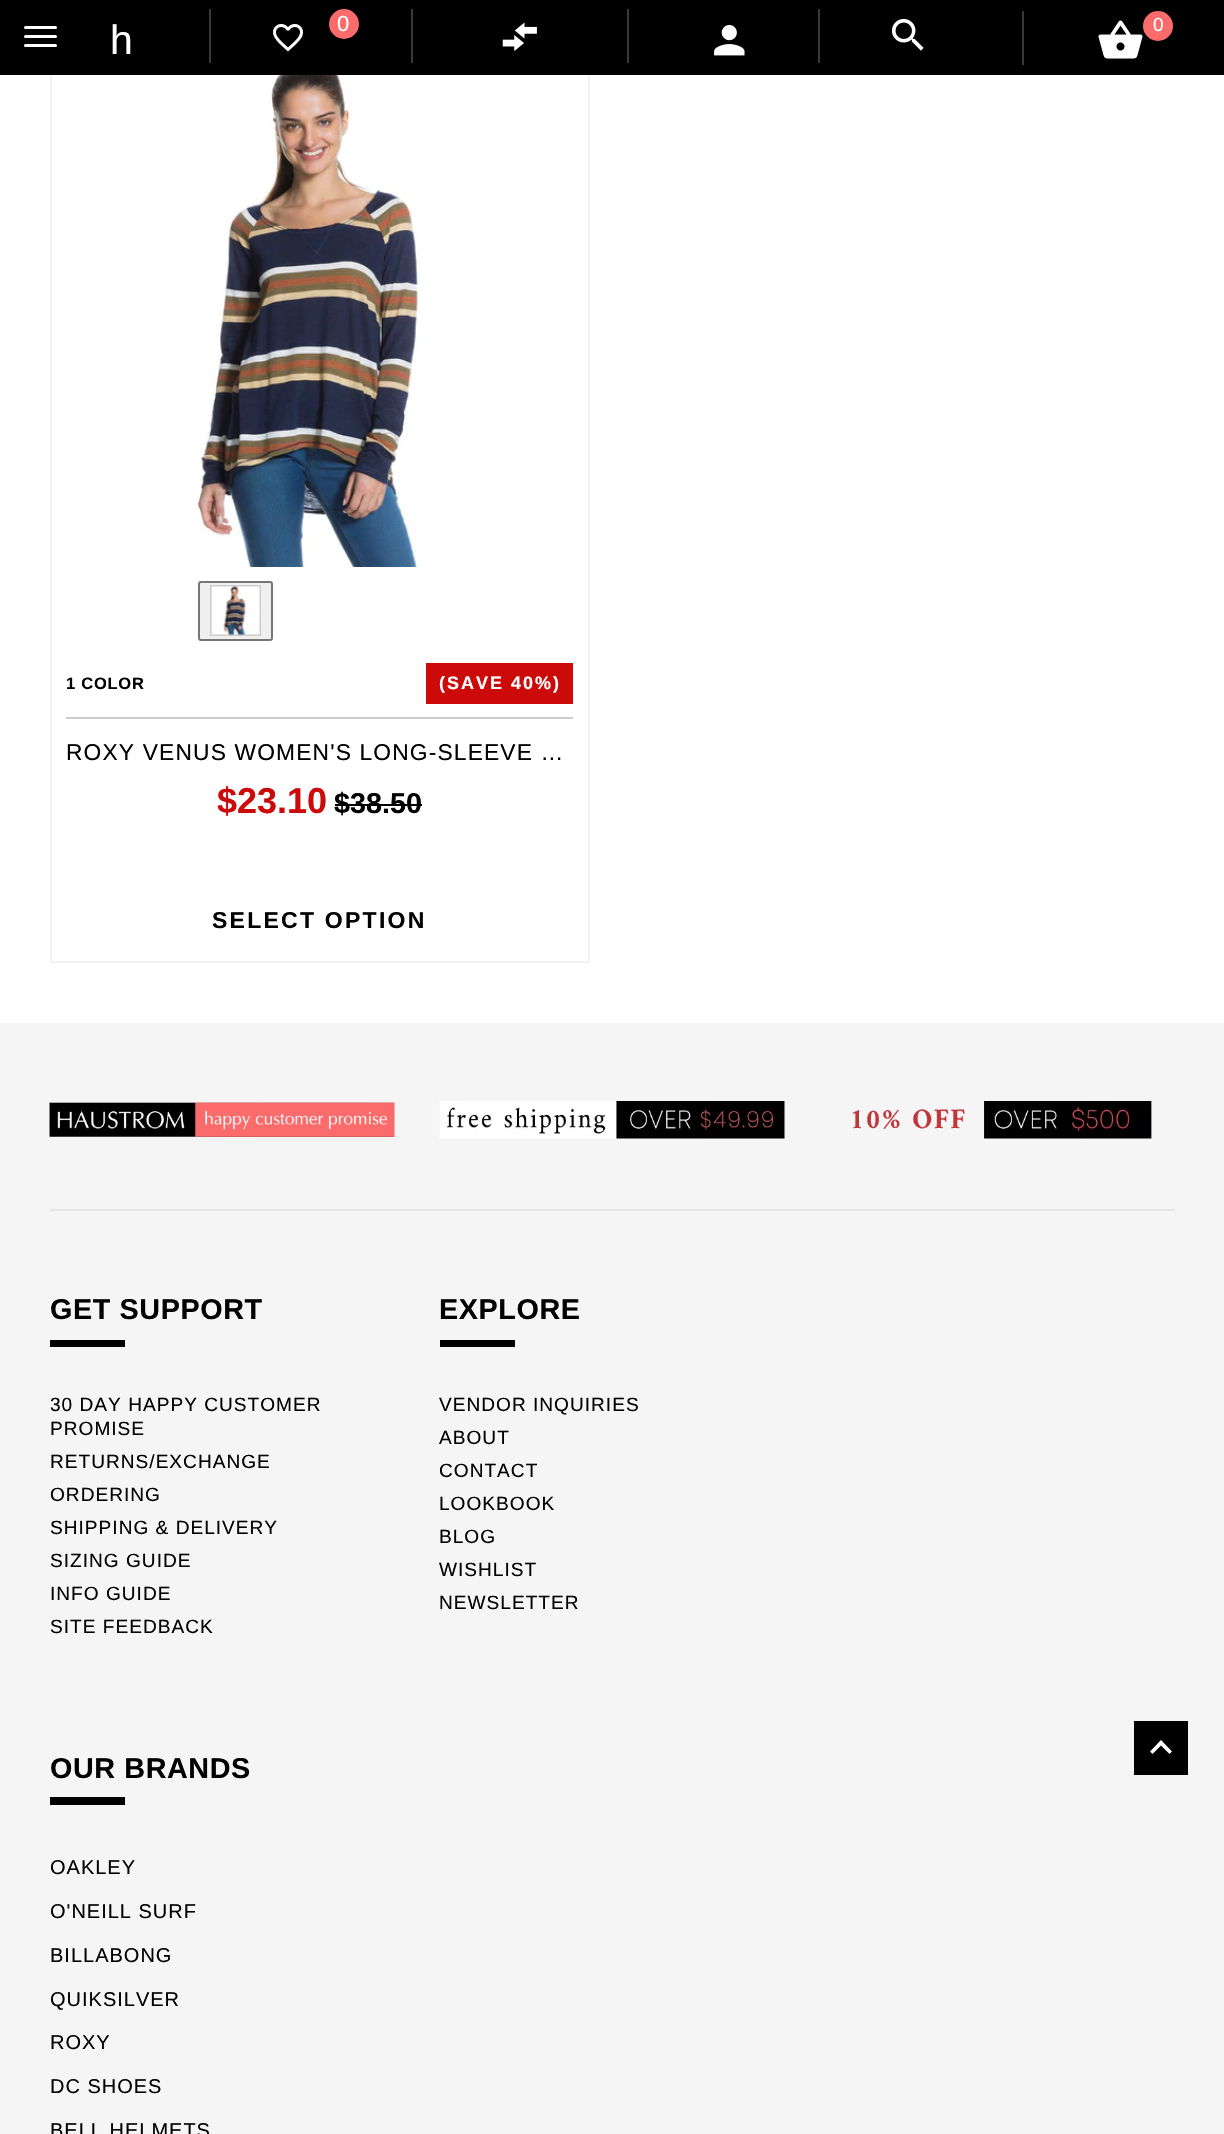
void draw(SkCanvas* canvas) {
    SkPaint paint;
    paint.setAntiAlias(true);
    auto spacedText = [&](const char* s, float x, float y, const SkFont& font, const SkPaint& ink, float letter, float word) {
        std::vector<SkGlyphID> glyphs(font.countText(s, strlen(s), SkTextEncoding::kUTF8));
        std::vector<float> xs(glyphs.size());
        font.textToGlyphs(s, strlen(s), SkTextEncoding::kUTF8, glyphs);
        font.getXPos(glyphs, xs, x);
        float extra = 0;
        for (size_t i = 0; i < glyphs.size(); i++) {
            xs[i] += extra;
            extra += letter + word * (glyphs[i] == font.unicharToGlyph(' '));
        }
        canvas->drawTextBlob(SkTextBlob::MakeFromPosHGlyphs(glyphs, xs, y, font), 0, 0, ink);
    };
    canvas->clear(0xFFFFFFFF);
    paint.setStyle(SkPaint::kStroke_Style);
    paint.setStrokeWidth(2);
    paint.setColor(0xFFF2F2F2);
    canvas->drawRect(SkRect::MakeXYWH(51, -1, 538, 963), paint);
    paint.setStyle(SkPaint::kFill_Style);
    paint.setColor(0xFF000000);
    canvas->drawRect(SkRect::MakeXYWH(0, 0, 1224, 75), paint);
    paint.setColor(0xFFFFFFFF);
    canvas->drawRoundRect(SkRect::MakeXYWH(24, 26, 33, 3), 1.5f, 1.5f, paint);
    canvas->drawRoundRect(SkRect::MakeXYWH(24, 35, 33, 3), 1.5f, 1.5f, paint);
    canvas->drawRoundRect(SkRect::MakeXYWH(24, 44, 33, 3), 1.5f, 1.5f, paint);
    SkFont font1(fontMgr->matchFamilyStyle("Liberation Sans", SkFontStyle::Normal()), 41);
    font1.setSubpixel(true);
    canvas->drawString("h", 110, 54, font1, paint);
    paint.setColor(0xFF3A3939);
    canvas->drawRect(SkRect::MakeXYWH(209, 9, 2, 54), paint);
    canvas->drawImageRect(SkImages::DeferredFromEncodedData(SkData::MakeFromFileName("img1.png")), SkRect::MakeXYWH(273, 24, 30, 28), SkSamplingOptions());
    paint.setColor(0xFFFA6B6B);
    canvas->drawCircle(344, 24, 15, paint);
    SkFont font2(fontMgr->matchFamilyStyle("Liberation Sans", SkFontStyle::Normal()), 22);
    font2.setSubpixel(true);
    paint.setColor(0xFFFFFFFF);
    canvas->drawString("0", 337, 31, font2, paint);
    paint.setColor(0xFF3A3939);
    canvas->drawRect(SkRect::MakeXYWH(411, 9, 2, 54), paint);
    canvas->drawImageRect(SkImages::DeferredFromEncodedData(SkData::MakeFromFileName("img2.png")), SkRect::MakeXYWH(502, 22, 35, 29), SkSamplingOptions());
    canvas->drawRect(SkRect::MakeXYWH(627, 9, 2, 54), paint);
    canvas->drawImageRect(SkImages::DeferredFromEncodedData(SkData::MakeFromFileName("img3.png")), SkRect::MakeXYWH(714, 25, 31, 31), SkSamplingOptions());
    canvas->drawRect(SkRect::MakeXYWH(818, 9, 2, 54), paint);
    canvas->drawImageRect(SkImages::DeferredFromEncodedData(SkData::MakeFromFileName("img4.png")), SkRect::MakeXYWH(891, 18, 33, 33), SkSamplingOptions());
    canvas->drawRect(SkRect::MakeXYWH(1022, 11, 2, 54), paint);
    canvas->drawImageRect(SkImages::DeferredFromEncodedData(SkData::MakeFromFileName("img5.png")), SkRect::MakeXYWH(1098, 20, 45, 39), SkSamplingOptions());
    paint.setColor(0xFFFA6B6B);
    canvas->drawCircle(1158, 26, 15, paint);
    SkFont font3(fontMgr->matchFamilyStyle("Liberation Sans", SkFontStyle::Normal()), 19);
    font3.setSubpixel(true);
    paint.setColor(0xFFFFFFFF);
    canvas->drawString("0", 1153, 31, font3, paint);
    canvas->drawImageRect(SkImages::DeferredFromEncodedData(SkData::MakeFromFileName("img6.png")), SkRect::MakeXYWH(197, 75, 224, 492), SkSamplingOptions());
    paint.setColor(0xFFEFEFEF);
    canvas->drawRoundRect(SkRect::MakeXYWH(199, 582, 73, 58), 2, 2, paint);
    paint.setStyle(SkPaint::kStroke_Style);
    paint.setColor(0xFF767676);
    canvas->drawRoundRect(SkRect::MakeXYWH(199, 582, 73, 58), 2, 2, paint);
    paint.setColor(0xFFCCCCCC);
    canvas->drawRect(SkRect::MakeXYWH(211, 586, 49, 49), paint);
    canvas->drawImageRect(SkImages::DeferredFromEncodedData(SkData::MakeFromFileName("img7.png")), SkRect::MakeXYWH(211, 586, 49, 50), SkSamplingOptions());
    SkFont font4(fontMgr->matchFamilyStyle("Liberation Sans", SkFontStyle::Bold()), 16.5f);
    font4.setSubpixel(true);
    paint.setStyle(SkPaint::kFill_Style);
    paint.setColor(0xFF000000);
    spacedText("1 COLOR", 66, 689, font4, paint, 0.75f, 0);
    paint.setColor(0xFFCC0A0A);
    canvas->drawRect(SkRect::MakeXYWH(426, 663, 147, 41), paint);
    SkFont font5(fontMgr->matchFamilyStyle("Liberation Sans", SkFontStyle::Bold()), 18);
    font5.setSubpixel(true);
    paint.setColor(0xFFFFFFFF);
    spacedText("(SAVE 40%)", 439, 689, font5, paint, 2, 0);
    paint.setColor(0xFFCCCCCC);
    canvas->drawRect(SkRect::MakeXYWH(66, 717, 507, 2), paint);
    SkFont font6(fontMgr->matchFamilyStyle("Liberation Sans", SkFontStyle::Normal()), 22.8f);
    font6.setSubpixel(true);
    paint.setColor(0xFF000000);
    spacedText("ROXY VENUS WOMEN'S LONG-SLEEVE …", 66, 760, font6, paint, 1.15f, 0);
    SkFont font7(fontMgr->matchFamilyStyle("Liberation Sans", SkFontStyle::Bold()), 36);
    font7.setSubpixel(true);
    paint.setColor(0xFFCC0A0A);
    canvas->drawString("$23.10", 217, 813, font7, paint);
    SkFont font8(fontMgr->matchFamilyStyle("Liberation Sans", SkFontStyle::Bold()), 28.75f);
    font8.setSubpixel(true);
    paint.setColor(0xFF000000);
    canvas->drawString("$38.50", 334, 813, font8, paint);
    canvas->drawRect(SkRect::MakeXYWH(335, 804, 87, 2), paint);
    SkFont font9(fontMgr->matchFamilyStyle("Liberation Sans", SkFontStyle::Bold()), 23);
    font9.setSubpixel(true);
    spacedText("SELECT OPTION", 212, 928, font9, paint, 2.25f, 0);
    paint.setColor(0xFFF5F5F5);
    canvas->drawRect(SkRect::MakeXYWH(0, 1023, 1224, 1111), paint);
    canvas->drawImageRect(SkImages::DeferredFromEncodedData(SkData::MakeFromFileName("img8.png")), SkRect::MakeXYWH(49, 1102, 346, 35), SkSamplingOptions());
    canvas->drawImageRect(SkImages::DeferredFromEncodedData(SkData::MakeFromFileName("img9.png")), SkRect::MakeXYWH(439, 1101, 346, 38), SkSamplingOptions());
    canvas->drawImageRect(SkImages::DeferredFromEncodedData(SkData::MakeFromFileName("img10.png")), SkRect::MakeXYWH(852, 1101, 300, 38), SkSamplingOptions());
    paint.setColor(0xFFE5E5E5);
    canvas->drawRect(SkRect::MakeXYWH(50, 1209, 1125, 2), paint);
    paint.setColor(0xFF000000);
    spacedText("GET SUPPORT", 50, 1319, font8, paint, 0.6f, 0);
    canvas->drawRect(SkRect::MakeXYWH(50, 1340, 75, 7), paint);
    SkFont font10(fontMgr->matchFamilyStyle("Liberation Sans", SkFontStyle::Normal()), 19.1f);
    font10.setSubpixel(true);
    spacedText("30 DAY HAPPY CUSTOMER", 50, 1411, font10, paint, 1, 0);
    spacedText("PROMISE", 50, 1435, font10, paint, 1, 0);
    spacedText("RETURNS/EXCHANGE", 50, 1468, font10, paint, 1, 0);
    spacedText("ORDERING", 50, 1501, font10, paint, 1, 0);
    spacedText("SHIPPING & DELIVERY", 50, 1534, font10, paint, 1, 0);
    spacedText("SIZING GUIDE", 50, 1567, font10, paint, 1, 0);
    spacedText("INFO GUIDE", 50, 1600, font10, paint, 1, 0);
    spacedText("SITE FEEDBACK", 50, 1633, font10, paint, 1, 0);
    spacedText("EXPLORE", 439, 1319, font8, paint, 0.6f, 0);
    canvas->drawRect(SkRect::MakeXYWH(440, 1340, 75, 7), paint);
    spacedText("VENDOR INQUIRIES", 439, 1411, font10, paint, 1, 0);
    spacedText("ABOUT", 439, 1444, font10, paint, 1, 0);
    spacedText("CONTACT", 439, 1477, font10, paint, 1, 0);
    spacedText("LOOKBOOK", 439, 1510, font10, paint, 1, 0);
    spacedText("BLOG", 439, 1543, font10, paint, 1, 0);
    spacedText("WISHLIST", 439, 1576, font10, paint, 1, 0);
    spacedText("NEWSLETTER", 439, 1609, font10, paint, 1, 0);
    spacedText("OUR BRANDS", 50, 1778, font8, paint, 0.6f, 0);
    canvas->drawRect(SkRect::MakeXYWH(50, 1797, 75, 8), paint);
    SkFont font11(fontMgr->matchFamilyStyle("Liberation Sans", SkFontStyle::Normal()), 20);
    font11.setSubpixel(true);
    spacedText("OAKLEY", 50, 1874, font11, paint, 1, 0);
    spacedText("O'NEILL SURF", 50, 1918, font11, paint, 1, 0);
    spacedText("BILLABONG", 50, 1962, font11, paint, 1, 0);
    spacedText("QUIKSILVER", 50, 2006, font11, paint, 1, 0);
    spacedText("ROXY", 50, 2049, font11, paint, 1, 0);
    spacedText("DC SHOES", 50, 2093, font11, paint, 1, 0);
    spacedText("BELL HELMETS", 50, 2137, font11, paint, 1, 0);
    canvas->drawRect(SkRect::MakeXYWH(1134, 1721, 54, 54), paint);
    paint.setColor(0xFFFFFFFF);
    canvas->drawPath(SkPathBuilder().moveTo(1152.5f, 1754).lineTo(1150, 1751.5f).lineTo(1161, 1740).lineTo(1172, 1751.5f).lineTo(1169.5f, 1754).lineTo(1161, 1745.5f).close().detach(), paint);
}
